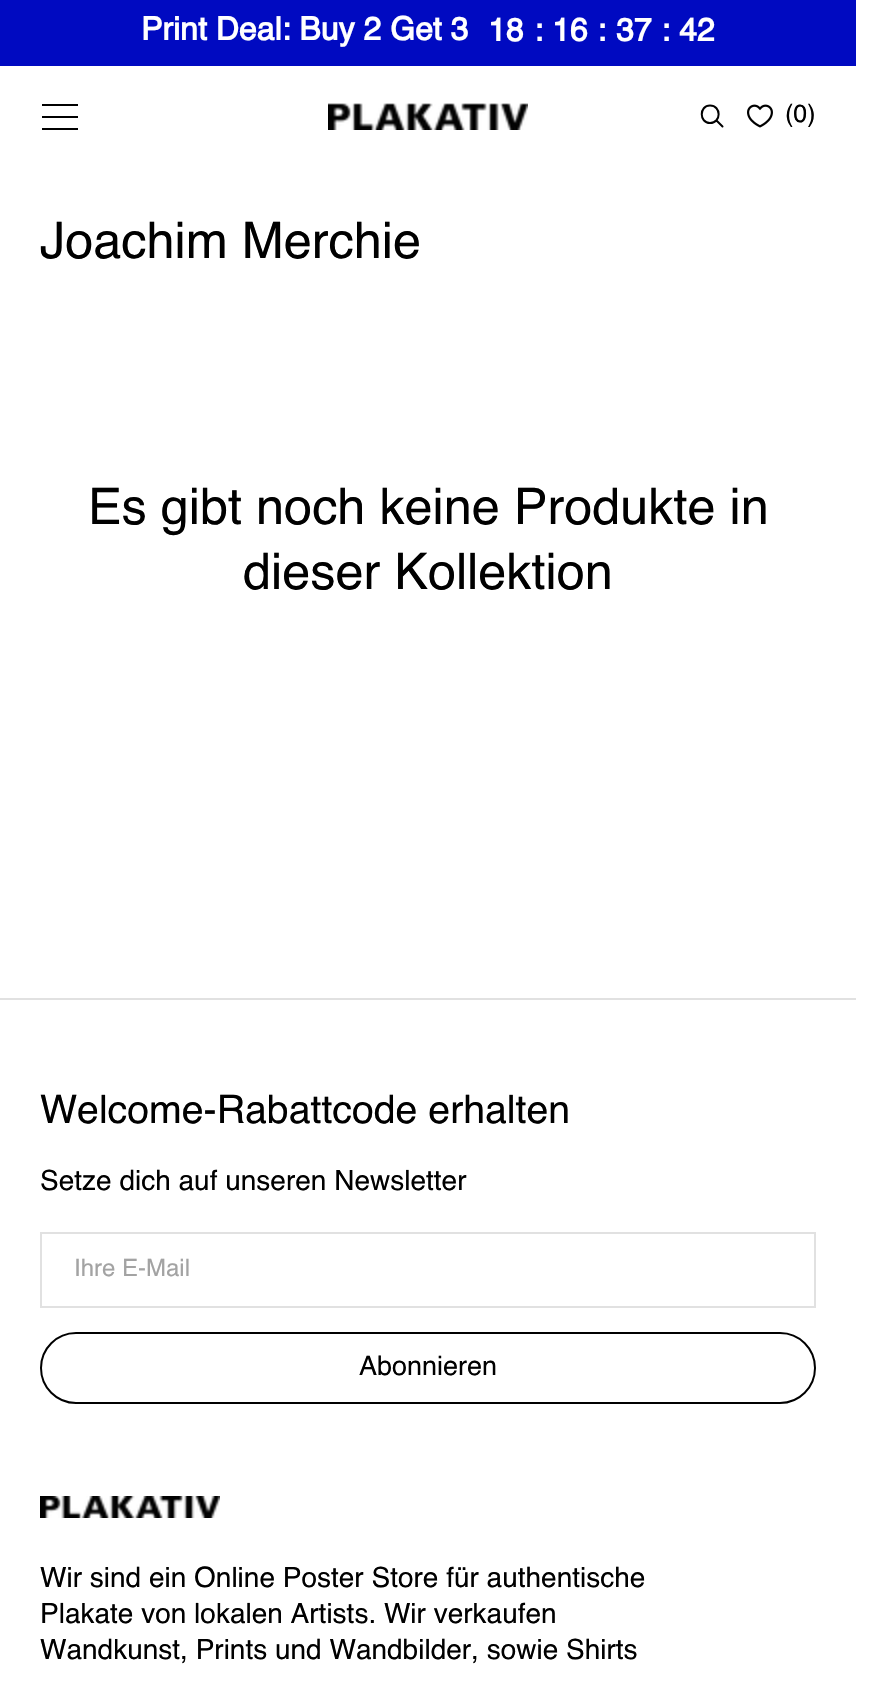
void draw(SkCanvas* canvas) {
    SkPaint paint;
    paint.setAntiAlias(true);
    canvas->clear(0xFFFFFFFF);
    paint.setColor(0xFF000AC1);
    canvas->drawRect(SkRect::MakeXYWH(0, 0, 856, 66), paint);
    SkFont font1(fontMgr->matchFamilyStyle("Helvetica", SkFontStyle::Bold()), 32);
    font1.setSubpixel(true);
    paint.setColor(0xFFFFFFFF);
    canvas->drawString("Print Deal: Buy 2 Get 3", 141, 40, font1, paint);
    canvas->drawString("18", 488, 41, font1, paint);
    canvas->drawString(":", 534, 41, font1, paint);
    canvas->drawString("16", 552, 41, font1, paint);
    canvas->drawString(":", 597, 41, font1, paint);
    canvas->drawString("37", 616, 41, font1, paint);
    canvas->drawString(":", 661, 41, font1, paint);
    canvas->drawString("42", 679, 41, font1, paint);
    paint.setColor(0xFF000000);
    canvas->drawRect(SkRect::MakeXYWH(42, 104, 36, 2), paint);
    canvas->drawRect(SkRect::MakeXYWH(42, 116, 36, 2), paint);
    canvas->drawRect(SkRect::MakeXYWH(42, 128, 36, 2), paint);
    canvas->drawImageRect(SkImages::DeferredFromEncodedData(SkData::MakeFromFileName("img1.png")), SkRect::MakeXYWH(328, 103, 200, 27), SkSamplingOptions());
    paint.setStyle(SkPaint::kStroke_Style);
    paint.setStrokeWidth(2);
    paint.setStrokeCap(SkPaint::kRound_Cap);
    paint.setStrokeJoin(SkPaint::kRound_Join);
    canvas->drawPath(SkPathBuilder().moveTo(710, 123).cubicTo(721.5f, 123, 721.5f, 105.5f, 710, 105.5f).cubicTo(699, 105.5f, 699, 123, 710, 123).close().moveTo(716.5f, 120.5f).lineTo(722.5f, 126.5f).detach(), paint);
    canvas->drawImageRect(SkImages::DeferredFromEncodedData(SkData::MakeFromFileName("img2.png")), SkRect::MakeXYWH(747, 104, 26, 24), SkSamplingOptions());
    SkFont font2(fontMgr->matchFamilyStyle("Helvetica", SkFontStyle::Normal()), 25);
    font2.setSubpixel(true);
    paint.setStyle(SkPaint::kFill_Style);
    canvas->drawString("(0)", 785, 122, font2, paint);
    SkFont font3(fontMgr->matchFamilyStyle("Helvetica", SkFontStyle::Normal()), 50.4f);
    font3.setSubpixel(true);
    canvas->drawString("Joachim Merchie", 40, 258, font3, paint);
    canvas->drawString("Es gibt noch keine Produkte in", 88, 524, font3, paint);
    canvas->drawString("dieser Kollektion", 243, 589, font3, paint);
    paint.setColor(0xFFE1E1E1);
    canvas->drawRect(SkRect::MakeXYWH(0, 998, 856, 2), paint);
    SkFont font4(fontMgr->matchFamilyStyle("Helvetica", SkFontStyle::Normal()), 39.25f);
    font4.setSubpixel(true);
    paint.setColor(0xFF000000);
    canvas->drawString("Welcome-Rabattcode erhalten", 40, 1123, font4, paint);
    SkFont font5(fontMgr->matchFamilyStyle("Helvetica", SkFontStyle::Normal()), 28);
    font5.setSubpixel(true);
    canvas->drawString("Setze dich auf unseren Newsletter", 40, 1190, font5, paint);
    paint.setStyle(SkPaint::kStroke_Style);
    paint.setStrokeCap(SkPaint::kButt_Cap);
    paint.setStrokeJoin(SkPaint::kMiter_Join);
    paint.setColor(0xFFE1E1E1);
    canvas->drawRect(SkRect::MakeXYWH(41, 1233, 774, 74), paint);
    SkFont font6(fontMgr->matchFamilyStyle("Helvetica", SkFontStyle::Normal()), 24);
    font6.setSubpixel(true);
    paint.setStyle(SkPaint::kFill_Style);
    paint.setColor(0xFFA3A3A3);
    canvas->drawString("Ihre E-Mail", 74, 1276, font6, paint);
    paint.setStyle(SkPaint::kStroke_Style);
    paint.setColor(0xFF000000);
    canvas->drawRoundRect(SkRect::MakeXYWH(41, 1333, 774, 70), 35, 35, paint);
    SkFont font7(fontMgr->matchFamilyStyle("Helvetica", SkFontStyle::Normal()), 27);
    font7.setSubpixel(true);
    paint.setStyle(SkPaint::kFill_Style);
    canvas->drawString("Abonnieren", 359, 1375, font7, paint);
    canvas->drawImageRect(SkImages::DeferredFromEncodedData(SkData::MakeFromFileName("img3.png")), SkRect::MakeXYWH(40, 1496, 180, 22), SkSamplingOptions());
    canvas->drawString("Wir sind ein Online Poster Store für authentische", 40, 1587, font5, paint);
    canvas->drawString("Plakate von lokalen Artists. Wir verkaufen", 40, 1623, font5, paint);
    canvas->drawString("Wandkunst, Prints und Wandbilder, sowie Shirts", 40, 1659, font5, paint);
}
